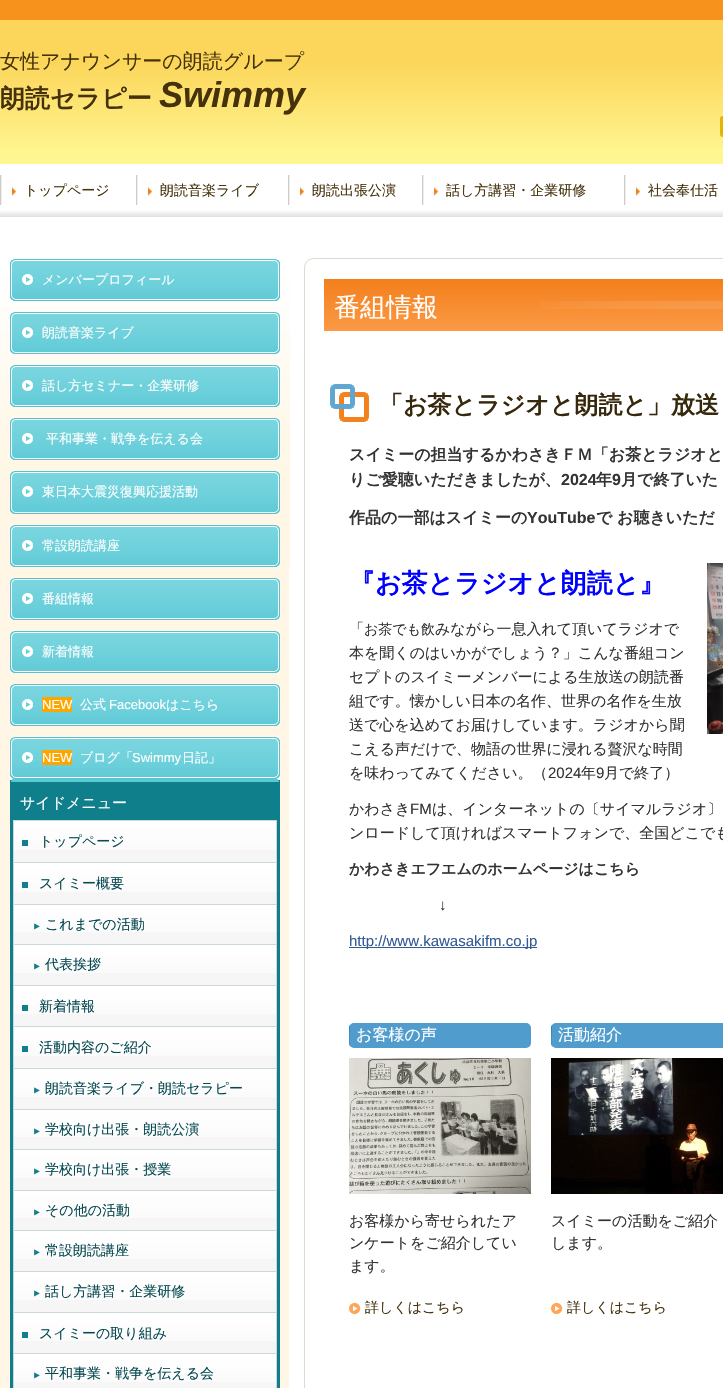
void draw(SkCanvas* canvas) {
    SkPaint paint;
    paint.setAntiAlias(true);
    canvas->clear(0xFFFFFFFF);
    paint.setColor(0xFFFEF691);
    canvas->drawRect(SkRect::MakeXYWH(0, 149, 723, 15), paint);
    canvas->drawImageRect(SkImages::DeferredFromEncodedData(SkData::MakeFromFileName("img1.png")), SkRect::MakeXYWH(0, 20, 723, 129), SkSamplingOptions());
    paint.setColor(0xFFF7931D);
    canvas->drawRect(SkRect::MakeXYWH(0, 0, 723, 20), paint);
    SkFont font1(fontMgr->matchFamilyStyle("WenQuanYi Zen Hei", SkFontStyle(500, SkFontStyle::kNormal_Width, SkFontStyle::kUpright_Slant)), 20);
    font1.setSubpixel(true);
    paint.setColor(0xFF45320B);
    canvas->drawString("女性アナウンサーの朗読グループ", 0, 68, font1, paint);
    SkFont font2(fontMgr->matchFamilyStyle("WenQuanYi Zen Hei", SkFontStyle::Bold()), 25);
    font2.setSubpixel(true);
    canvas->drawString("朗読セラピー", 0, 107, font2, paint);
    SkFont font3(fontMgr->matchFamilyStyle("Liberation Sans", SkFontStyle::BoldItalic()), 36);
    font3.setSubpixel(true);
    canvas->drawString("Swimmy", 159, 107, font3, paint);
    canvas->drawImageRect(SkImages::DeferredFromEncodedData(SkData::MakeFromFileName("img2.png")), SkRect::MakeXYWH(720, 116, 3, 21), SkSamplingOptions());
    paint.setColor(0xFFE6B405);
    canvas->drawRoundRect(SkRect::MakeXYWH(720, 116, 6, 21), 3, 3, paint);
    canvas->drawImageRect(SkImages::DeferredFromEncodedData(SkData::MakeFromFileName("img3.png")), SkRect::MakeXYWH(0, 164, 723, 53), SkSamplingOptions());
    canvas->drawImageRect(SkImages::DeferredFromEncodedData(SkData::MakeFromFileName("img4.png")), SkRect::MakeXYWH(0, 175, 2, 30), SkSamplingOptions());
    canvas->drawImageRect(SkImages::DeferredFromEncodedData(SkData::MakeFromFileName("img5.png")), SkRect::MakeXYWH(12, 187, 4, 9), SkSamplingOptions());
    SkFont font4(fontMgr->matchFamilyStyle("WenQuanYi Zen Hei", SkFontStyle(500, SkFontStyle::kNormal_Width, SkFontStyle::kUpright_Slant)), 14);
    font4.setSubpixel(true);
    paint.setColor(0xFF45320B);
    canvas->drawString("トップページ", 24, 195, font4, paint);
    canvas->drawImageRect(SkImages::DeferredFromEncodedData(SkData::MakeFromFileName("img4.png")), SkRect::MakeXYWH(136, 175, 2, 30), SkSamplingOptions());
    canvas->drawImageRect(SkImages::DeferredFromEncodedData(SkData::MakeFromFileName("img5.png")), SkRect::MakeXYWH(148, 187, 4, 9), SkSamplingOptions());
    canvas->drawString("朗読音楽ライブ", 160, 195, font4, paint);
    canvas->drawImageRect(SkImages::DeferredFromEncodedData(SkData::MakeFromFileName("img4.png")), SkRect::MakeXYWH(288, 175, 2, 30), SkSamplingOptions());
    canvas->drawImageRect(SkImages::DeferredFromEncodedData(SkData::MakeFromFileName("img5.png")), SkRect::MakeXYWH(300, 187, 4, 9), SkSamplingOptions());
    canvas->drawString("朗読出張公演", 312, 195, font4, paint);
    canvas->drawImageRect(SkImages::DeferredFromEncodedData(SkData::MakeFromFileName("img4.png")), SkRect::MakeXYWH(422, 175, 2, 30), SkSamplingOptions());
    canvas->drawImageRect(SkImages::DeferredFromEncodedData(SkData::MakeFromFileName("img6.png")), SkRect::MakeXYWH(434, 187, 5, 9), SkSamplingOptions());
    canvas->drawString("話し方講習・企業研修", 446, 195, font4, paint);
    canvas->drawImageRect(SkImages::DeferredFromEncodedData(SkData::MakeFromFileName("img4.png")), SkRect::MakeXYWH(624, 175, 2, 30), SkSamplingOptions());
    canvas->drawImageRect(SkImages::DeferredFromEncodedData(SkData::MakeFromFileName("img5.png")), SkRect::MakeXYWH(636, 187, 4, 9), SkSamplingOptions());
    canvas->drawString("社会奉仕活", 648, 195, font4, paint);
    canvas->drawImageRect(SkImages::DeferredFromEncodedData(SkData::MakeFromFileName("img7.png")), SkRect::MakeXYWH(0, 258, 305, 1130), SkSamplingOptions());
    canvas->drawImageRect(SkImages::DeferredFromEncodedData(SkData::MakeFromFileName("img8.png")), SkRect::MakeXYWH(0, 258, 290, 310), SkSamplingOptions());
    canvas->drawImageRect(SkImages::DeferredFromEncodedData(SkData::MakeFromFileName("img9.png")), SkRect::MakeXYWH(10, 260, 270, 41), SkSamplingOptions());
    paint.setStyle(SkPaint::kStroke_Style);
    paint.setStrokeWidth(1);
    paint.setColor(0xFF55C2CF);
    canvas->drawRoundRect(SkRect::MakeXYWH(10.5f, 259.5f, 269, 41), 4.5f, 4.5f, paint);
    canvas->drawImageRect(SkImages::DeferredFromEncodedData(SkData::MakeFromFileName("img10.png")), SkRect::MakeXYWH(22, 274, 11, 11), SkSamplingOptions());
    paint.setColor(0xFFFFFFFF);
    canvas->drawRoundRect(SkRect::MakeXYWH(11.5f, 260.5f, 267, 39), 4.5f, 4.5f, paint);
    SkFont font5(fontMgr->matchFamilyStyle("WenQuanYi Zen Hei", SkFontStyle(500, SkFontStyle::kNormal_Width, SkFontStyle::kUpright_Slant)), 13);
    font5.setSubpixel(true);
    paint.setStyle(SkPaint::kFill_Style);
    canvas->drawString("メンバープロフィール", 42, 284, font5, paint);
    canvas->drawImageRect(SkImages::DeferredFromEncodedData(SkData::MakeFromFileName("img11.png")), SkRect::MakeXYWH(10, 313, 270, 41), SkSamplingOptions());
    paint.setStyle(SkPaint::kStroke_Style);
    paint.setColor(0xFF55C2CF);
    canvas->drawRoundRect(SkRect::MakeXYWH(10.5f, 312.5f, 269, 41), 4.5f, 4.5f, paint);
    canvas->drawImageRect(SkImages::DeferredFromEncodedData(SkData::MakeFromFileName("img10.png")), SkRect::MakeXYWH(22, 327, 11, 11), SkSamplingOptions());
    paint.setColor(0xFFFFFFFF);
    canvas->drawRoundRect(SkRect::MakeXYWH(11.5f, 313.5f, 267, 39), 4.5f, 4.5f, paint);
    paint.setStyle(SkPaint::kFill_Style);
    canvas->drawString("朗読音楽ライブ", 42, 337, font5, paint);
    canvas->drawImageRect(SkImages::DeferredFromEncodedData(SkData::MakeFromFileName("img12.png")), SkRect::MakeXYWH(10, 366, 270, 41), SkSamplingOptions());
    paint.setStyle(SkPaint::kStroke_Style);
    paint.setColor(0xFF55C2CF);
    canvas->drawRoundRect(SkRect::MakeXYWH(10.5f, 365.5f, 269, 41), 4.5f, 4.5f, paint);
    canvas->drawImageRect(SkImages::DeferredFromEncodedData(SkData::MakeFromFileName("img10.png")), SkRect::MakeXYWH(22, 380, 11, 11), SkSamplingOptions());
    paint.setColor(0xFFFFFFFF);
    canvas->drawRoundRect(SkRect::MakeXYWH(11.5f, 366.5f, 267, 39), 4.5f, 4.5f, paint);
    paint.setStyle(SkPaint::kFill_Style);
    canvas->drawString("話し方セミナー・企業研修", 42, 390, font5, paint);
    canvas->drawImageRect(SkImages::DeferredFromEncodedData(SkData::MakeFromFileName("img13.png")), SkRect::MakeXYWH(10, 419, 270, 41), SkSamplingOptions());
    paint.setStyle(SkPaint::kStroke_Style);
    paint.setColor(0xFF55C2CF);
    canvas->drawRoundRect(SkRect::MakeXYWH(10.5f, 418.5f, 269, 41), 4.5f, 4.5f, paint);
    canvas->drawImageRect(SkImages::DeferredFromEncodedData(SkData::MakeFromFileName("img10.png")), SkRect::MakeXYWH(22, 433, 11, 11), SkSamplingOptions());
    paint.setColor(0xFFFFFFFF);
    canvas->drawRoundRect(SkRect::MakeXYWH(11.5f, 419.5f, 267, 39), 4.5f, 4.5f, paint);
    paint.setStyle(SkPaint::kFill_Style);
    canvas->drawString("平和事業・戦争を伝える会", 46, 443, font5, paint);
    canvas->drawImageRect(SkImages::DeferredFromEncodedData(SkData::MakeFromFileName("img14.png")), SkRect::MakeXYWH(10, 472, 270, 42), SkSamplingOptions());
    paint.setStyle(SkPaint::kStroke_Style);
    paint.setColor(0xFF55C2CF);
    canvas->drawRoundRect(SkRect::MakeXYWH(10.5f, 471.5f, 269, 42), 4.5f, 4.5f, paint);
    canvas->drawImageRect(SkImages::DeferredFromEncodedData(SkData::MakeFromFileName("img10.png")), SkRect::MakeXYWH(22, 486, 11, 11), SkSamplingOptions());
    paint.setColor(0xFFFFFFFF);
    canvas->drawRoundRect(SkRect::MakeXYWH(11.5f, 472.5f, 267, 40), 4.5f, 4.5f, paint);
    paint.setStyle(SkPaint::kFill_Style);
    canvas->drawString("東日本大震災復興応援活動", 42, 496, font5, paint);
    canvas->drawImageRect(SkImages::DeferredFromEncodedData(SkData::MakeFromFileName("img15.png")), SkRect::MakeXYWH(10, 526, 270, 41), SkSamplingOptions());
    paint.setStyle(SkPaint::kStroke_Style);
    paint.setColor(0xFF55C2CF);
    canvas->drawRoundRect(SkRect::MakeXYWH(10.5f, 525.5f, 269, 41), 4.5f, 4.5f, paint);
    canvas->drawImageRect(SkImages::DeferredFromEncodedData(SkData::MakeFromFileName("img10.png")), SkRect::MakeXYWH(22, 540, 11, 11), SkSamplingOptions());
    paint.setColor(0xFFFFFFFF);
    canvas->drawRoundRect(SkRect::MakeXYWH(11.5f, 526.5f, 267, 39), 4.5f, 4.5f, paint);
    paint.setStyle(SkPaint::kFill_Style);
    canvas->drawString("常設朗読講座", 42, 550, font5, paint);
    canvas->drawImageRect(SkImages::DeferredFromEncodedData(SkData::MakeFromFileName("img15.png")), SkRect::MakeXYWH(10, 579, 270, 41), SkSamplingOptions());
    paint.setStyle(SkPaint::kStroke_Style);
    paint.setColor(0xFF55C2CF);
    canvas->drawRoundRect(SkRect::MakeXYWH(10.5f, 578.5f, 269, 41), 4.5f, 4.5f, paint);
    canvas->drawImageRect(SkImages::DeferredFromEncodedData(SkData::MakeFromFileName("img10.png")), SkRect::MakeXYWH(22, 593, 11, 11), SkSamplingOptions());
    paint.setColor(0xFFFFFFFF);
    canvas->drawRoundRect(SkRect::MakeXYWH(11.5f, 579.5f, 267, 39), 4.5f, 4.5f, paint);
    paint.setStyle(SkPaint::kFill_Style);
    canvas->drawString("番組情報", 42, 603, font5, paint);
    canvas->drawImageRect(SkImages::DeferredFromEncodedData(SkData::MakeFromFileName("img15.png")), SkRect::MakeXYWH(10, 632, 270, 41), SkSamplingOptions());
    paint.setStyle(SkPaint::kStroke_Style);
    paint.setColor(0xFF55C2CF);
    canvas->drawRoundRect(SkRect::MakeXYWH(10.5f, 631.5f, 269, 41), 4.5f, 4.5f, paint);
    canvas->drawImageRect(SkImages::DeferredFromEncodedData(SkData::MakeFromFileName("img10.png")), SkRect::MakeXYWH(22, 646, 11, 11), SkSamplingOptions());
    paint.setColor(0xFFFFFFFF);
    canvas->drawRoundRect(SkRect::MakeXYWH(11.5f, 632.5f, 267, 39), 4.5f, 4.5f, paint);
    paint.setStyle(SkPaint::kFill_Style);
    canvas->drawString("新着情報", 42, 656, font5, paint);
    canvas->drawImageRect(SkImages::DeferredFromEncodedData(SkData::MakeFromFileName("img15.png")), SkRect::MakeXYWH(10, 685, 270, 41), SkSamplingOptions());
    paint.setStyle(SkPaint::kStroke_Style);
    paint.setColor(0xFF55C2CF);
    canvas->drawRoundRect(SkRect::MakeXYWH(10.5f, 684.5f, 269, 41), 4.5f, 4.5f, paint);
    canvas->drawImageRect(SkImages::DeferredFromEncodedData(SkData::MakeFromFileName("img10.png")), SkRect::MakeXYWH(22, 699, 11, 11), SkSamplingOptions());
    paint.setColor(0xFFFFFFFF);
    canvas->drawRoundRect(SkRect::MakeXYWH(11.5f, 685.5f, 267, 39), 4.5f, 4.5f, paint);
    paint.setStyle(SkPaint::kFill_Style);
    paint.setColor(0xFFFFA500);
    canvas->drawRect(SkRect::MakeXYWH(42, 697, 30, 15), paint);
    SkFont font6(fontMgr->matchFamilyStyle("Liberation Sans", SkFontStyle::Normal()), 13);
    font6.setSubpixel(true);
    paint.setColor(0xFFFFFFFF);
    canvas->drawString("NEW", 42, 709, font6, paint);
    canvas->drawString("公式", 80, 709, font5, paint);
    canvas->drawString("Facebook", 109, 709, font6, paint);
    canvas->drawString("はこちら", 166, 709, font5, paint);
    canvas->drawImageRect(SkImages::DeferredFromEncodedData(SkData::MakeFromFileName("img15.png")), SkRect::MakeXYWH(10, 738, 270, 41), SkSamplingOptions());
    paint.setStyle(SkPaint::kStroke_Style);
    paint.setColor(0xFF55C2CF);
    canvas->drawRoundRect(SkRect::MakeXYWH(10.5f, 737.5f, 269, 41), 4.5f, 4.5f, paint);
    canvas->drawImageRect(SkImages::DeferredFromEncodedData(SkData::MakeFromFileName("img10.png")), SkRect::MakeXYWH(22, 752, 11, 11), SkSamplingOptions());
    paint.setColor(0xFFFFFFFF);
    canvas->drawRoundRect(SkRect::MakeXYWH(11.5f, 738.5f, 267, 39), 4.5f, 4.5f, paint);
    paint.setStyle(SkPaint::kFill_Style);
    paint.setColor(0xFFFFA500);
    canvas->drawRect(SkRect::MakeXYWH(42, 750, 30, 15), paint);
    paint.setColor(0xFFFFFFFF);
    canvas->drawString("NEW", 42, 762, font6, paint);
    canvas->drawString("ブログ「", 80, 762, font5, paint);
    canvas->drawString("Swimmy", 132, 762, font6, paint);
    canvas->drawString("日記」", 182, 762, font5, paint);
    canvas->drawImageRect(SkImages::DeferredFromEncodedData(SkData::MakeFromFileName("img16.png")), SkRect::MakeXYWH(10, 779, 270, 41), SkSamplingOptions());
    SkFont font7(fontMgr->matchFamilyStyle("WenQuanYi Zen Hei", SkFontStyle(500, SkFontStyle::kNormal_Width, SkFontStyle::kUpright_Slant)), 15);
    font7.setSubpixel(true);
    canvas->drawString("サイドメニュー", 20, 808, font7, paint);
    paint.setColor(0xFF0F808B);
    canvas->drawRect(SkRect::MakeXYWH(277, 820, 3, 568), paint);
    canvas->drawRect(SkRect::MakeXYWH(10, 820, 3, 568), paint);
    paint.setStyle(SkPaint::kStroke_Style);
    paint.setColor(0xFFCBD8D9);
    canvas->drawRect(SkRect::MakeXYWH(13.5f, 820.5f, 263, 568), paint);
    paint.setStyle(SkPaint::kFill_Style);
    paint.setColor(0xFFF6F6F6);
    canvas->drawRect(SkRect::MakeXYWH(14, 850, 262, 12), paint);
    canvas->drawImageRect(SkImages::DeferredFromEncodedData(SkData::MakeFromFileName("img17.png")), SkRect::MakeXYWH(14, 822, 262, 28), SkSamplingOptions());
    paint.setColor(0xFFFFFFFF);
    canvas->drawRect(SkRect::MakeXYWH(14, 821, 262, 1), paint);
    paint.setColor(0xFFCBD8D9);
    canvas->drawRect(SkRect::MakeXYWH(14, 862, 262, 1), paint);
    paint.setColor(0xFF0F808B);
    canvas->drawRect(SkRect::MakeXYWH(22, 840, 6, 6), paint);
    paint.setColor(0xFF064951);
    canvas->drawString("トップページ", 39, 846, font4, paint);
    paint.setColor(0xFFF6F6F6);
    canvas->drawRect(SkRect::MakeXYWH(14, 892, 262, 12), paint);
    canvas->drawImageRect(SkImages::DeferredFromEncodedData(SkData::MakeFromFileName("img17.png")), SkRect::MakeXYWH(14, 864, 262, 28), SkSamplingOptions());
    paint.setColor(0xFFFFFFFF);
    canvas->drawRect(SkRect::MakeXYWH(14, 863, 262, 1), paint);
    paint.setColor(0xFFCBD8D9);
    canvas->drawRect(SkRect::MakeXYWH(14, 904, 262, 1), paint);
    paint.setColor(0xFF0F808B);
    canvas->drawRect(SkRect::MakeXYWH(22, 882, 6, 6), paint);
    paint.setColor(0xFF064951);
    canvas->drawString("スイミー概要", 39, 888, font4, paint);
    paint.setColor(0xFFCBD8D9);
    canvas->drawRect(SkRect::MakeXYWH(14, 944, 262, 1), paint);
    paint.setColor(0xFFF6F6F6);
    canvas->drawRect(SkRect::MakeXYWH(14, 932, 262, 12), paint);
    canvas->drawImageRect(SkImages::DeferredFromEncodedData(SkData::MakeFromFileName("img18.png")), SkRect::MakeXYWH(14, 905, 262, 27), SkSamplingOptions());
    canvas->drawImageRect(SkImages::DeferredFromEncodedData(SkData::MakeFromFileName("img19.png")), SkRect::MakeXYWH(34, 923, 6, 7), SkSamplingOptions());
    paint.setColor(0xFF064951);
    canvas->drawString("これまでの活動", 45, 929, font4, paint);
    paint.setColor(0xFFCBD8D9);
    canvas->drawRect(SkRect::MakeXYWH(14, 985, 262, 1), paint);
    paint.setColor(0xFFF6F6F6);
    canvas->drawRect(SkRect::MakeXYWH(14, 973, 262, 12), paint);
    canvas->drawImageRect(SkImages::DeferredFromEncodedData(SkData::MakeFromFileName("img17.png")), SkRect::MakeXYWH(14, 945, 262, 28), SkSamplingOptions());
    canvas->drawImageRect(SkImages::DeferredFromEncodedData(SkData::MakeFromFileName("img20.png")), SkRect::MakeXYWH(34, 963, 6, 7), SkSamplingOptions());
    paint.setColor(0xFF064951);
    canvas->drawString("代表挨拶", 45, 969, font4, paint);
    paint.setColor(0xFFF6F6F6);
    canvas->drawRect(SkRect::MakeXYWH(14, 1014, 262, 12), paint);
    canvas->drawImageRect(SkImages::DeferredFromEncodedData(SkData::MakeFromFileName("img18.png")), SkRect::MakeXYWH(14, 987, 262, 27), SkSamplingOptions());
    paint.setColor(0xFFFFFFFF);
    canvas->drawRect(SkRect::MakeXYWH(14, 986, 262, 1), paint);
    paint.setColor(0xFFCBD8D9);
    canvas->drawRect(SkRect::MakeXYWH(14, 1026, 262, 1), paint);
    paint.setColor(0xFF0F808B);
    canvas->drawRect(SkRect::MakeXYWH(22, 1005, 6, 6), paint);
    paint.setColor(0xFF064951);
    canvas->drawString("新着情報", 39, 1011, font4, paint);
    paint.setColor(0xFFF6F6F6);
    canvas->drawRect(SkRect::MakeXYWH(14, 1056, 262, 12), paint);
    canvas->drawImageRect(SkImages::DeferredFromEncodedData(SkData::MakeFromFileName("img17.png")), SkRect::MakeXYWH(14, 1028, 262, 28), SkSamplingOptions());
    paint.setColor(0xFFFFFFFF);
    canvas->drawRect(SkRect::MakeXYWH(14, 1027, 262, 1), paint);
    paint.setColor(0xFFCBD8D9);
    canvas->drawRect(SkRect::MakeXYWH(14, 1068, 262, 1), paint);
    paint.setColor(0xFF0F808B);
    canvas->drawRect(SkRect::MakeXYWH(22, 1046, 6, 6), paint);
    paint.setColor(0xFF064951);
    canvas->drawString("活動内容のご紹介", 39, 1052, font4, paint);
    paint.setColor(0xFFCBD8D9);
    canvas->drawRect(SkRect::MakeXYWH(14, 1109, 262, 1), paint);
    paint.setColor(0xFFF6F6F6);
    canvas->drawRect(SkRect::MakeXYWH(14, 1097, 262, 12), paint);
    canvas->drawImageRect(SkImages::DeferredFromEncodedData(SkData::MakeFromFileName("img17.png")), SkRect::MakeXYWH(14, 1069, 262, 28), SkSamplingOptions());
    canvas->drawImageRect(SkImages::DeferredFromEncodedData(SkData::MakeFromFileName("img20.png")), SkRect::MakeXYWH(34, 1087, 6, 7), SkSamplingOptions());
    paint.setColor(0xFF064951);
    canvas->drawString("朗読音楽ライブ・朗読セラピー", 45, 1093, font4, paint);
    paint.setColor(0xFFCBD8D9);
    canvas->drawRect(SkRect::MakeXYWH(14, 1149, 262, 1), paint);
    paint.setColor(0xFFF6F6F6);
    canvas->drawRect(SkRect::MakeXYWH(14, 1137, 262, 12), paint);
    canvas->drawImageRect(SkImages::DeferredFromEncodedData(SkData::MakeFromFileName("img18.png")), SkRect::MakeXYWH(14, 1110, 262, 27), SkSamplingOptions());
    canvas->drawImageRect(SkImages::DeferredFromEncodedData(SkData::MakeFromFileName("img19.png")), SkRect::MakeXYWH(34, 1128, 6, 7), SkSamplingOptions());
    paint.setColor(0xFF064951);
    canvas->drawString("学校向け出張・朗読公演", 45, 1134, font4, paint);
    paint.setColor(0xFFCBD8D9);
    canvas->drawRect(SkRect::MakeXYWH(14, 1190, 262, 1), paint);
    paint.setColor(0xFFF6F6F6);
    canvas->drawRect(SkRect::MakeXYWH(14, 1178, 262, 12), paint);
    canvas->drawImageRect(SkImages::DeferredFromEncodedData(SkData::MakeFromFileName("img17.png")), SkRect::MakeXYWH(14, 1150, 262, 28), SkSamplingOptions());
    canvas->drawImageRect(SkImages::DeferredFromEncodedData(SkData::MakeFromFileName("img20.png")), SkRect::MakeXYWH(34, 1168, 6, 7), SkSamplingOptions());
    paint.setColor(0xFF064951);
    canvas->drawString("学校向け出張・授業", 45, 1174, font4, paint);
    paint.setColor(0xFFCBD8D9);
    canvas->drawRect(SkRect::MakeXYWH(14, 1230, 262, 1), paint);
    paint.setColor(0xFFF6F6F6);
    canvas->drawRect(SkRect::MakeXYWH(14, 1218, 262, 12), paint);
    canvas->drawImageRect(SkImages::DeferredFromEncodedData(SkData::MakeFromFileName("img18.png")), SkRect::MakeXYWH(14, 1191, 262, 27), SkSamplingOptions());
    canvas->drawImageRect(SkImages::DeferredFromEncodedData(SkData::MakeFromFileName("img19.png")), SkRect::MakeXYWH(34, 1209, 6, 7), SkSamplingOptions());
    paint.setColor(0xFF064951);
    canvas->drawString("その他の活動", 45, 1215, font4, paint);
    paint.setColor(0xFFCBD8D9);
    canvas->drawRect(SkRect::MakeXYWH(14, 1271, 262, 1), paint);
    paint.setColor(0xFFF6F6F6);
    canvas->drawRect(SkRect::MakeXYWH(14, 1259, 262, 12), paint);
    canvas->drawImageRect(SkImages::DeferredFromEncodedData(SkData::MakeFromFileName("img17.png")), SkRect::MakeXYWH(14, 1231, 262, 28), SkSamplingOptions());
    canvas->drawImageRect(SkImages::DeferredFromEncodedData(SkData::MakeFromFileName("img20.png")), SkRect::MakeXYWH(34, 1249, 6, 7), SkSamplingOptions());
    paint.setColor(0xFF064951);
    canvas->drawString("常設朗読講座", 45, 1255, font4, paint);
    paint.setColor(0xFFCBD8D9);
    canvas->drawRect(SkRect::MakeXYWH(14, 1312, 262, 1), paint);
    paint.setColor(0xFFF6F6F6);
    canvas->drawRect(SkRect::MakeXYWH(14, 1300, 262, 12), paint);
    canvas->drawImageRect(SkImages::DeferredFromEncodedData(SkData::MakeFromFileName("img17.png")), SkRect::MakeXYWH(14, 1272, 262, 28), SkSamplingOptions());
    canvas->drawImageRect(SkImages::DeferredFromEncodedData(SkData::MakeFromFileName("img20.png")), SkRect::MakeXYWH(34, 1290, 6, 7), SkSamplingOptions());
    paint.setColor(0xFF064951);
    canvas->drawString("話し方講習・企業研修", 45, 1296, font4, paint);
    paint.setColor(0xFFF6F6F6);
    canvas->drawRect(SkRect::MakeXYWH(14, 1341, 262, 12), paint);
    canvas->drawImageRect(SkImages::DeferredFromEncodedData(SkData::MakeFromFileName("img18.png")), SkRect::MakeXYWH(14, 1314, 262, 27), SkSamplingOptions());
    paint.setColor(0xFFFFFFFF);
    canvas->drawRect(SkRect::MakeXYWH(14, 1313, 262, 1), paint);
    paint.setColor(0xFFCBD8D9);
    canvas->drawRect(SkRect::MakeXYWH(14, 1353, 262, 1), paint);
    paint.setColor(0xFF0F808B);
    canvas->drawRect(SkRect::MakeXYWH(22, 1332, 6, 6), paint);
    paint.setColor(0xFF064951);
    canvas->drawString("スイミーの取り組み", 39, 1338, font4, paint);
    paint.setColor(0xFFF6F6F6);
    canvas->drawRect(SkRect::MakeXYWH(14, 1382, 262, 6), paint);
    canvas->drawImageRect(SkImages::DeferredFromEncodedData(SkData::MakeFromFileName("img17.png")), SkRect::MakeXYWH(14, 1354, 262, 28), SkSamplingOptions());
    canvas->drawImageRect(SkImages::DeferredFromEncodedData(SkData::MakeFromFileName("img20.png")), SkRect::MakeXYWH(34, 1372, 6, 7), SkSamplingOptions());
    paint.setColor(0xFF064951);
    canvas->drawString("平和事業・戦争を伝える会", 45, 1378, font4, paint);
    canvas->drawImageRect(SkImages::DeferredFromEncodedData(SkData::MakeFromFileName("img21.png")), SkRect::MakeXYWH(304, 258, 419, 9), SkSamplingOptions());
    canvas->drawImageRect(SkImages::DeferredFromEncodedData(SkData::MakeFromFileName("img22.png")), SkRect::MakeXYWH(324, 279, 399, 52), SkSamplingOptions());
    canvas->drawImageRect(SkImages::DeferredFromEncodedData(SkData::MakeFromFileName("img23.png")), SkRect::MakeXYWH(540, 301, 183, 8), SkSamplingOptions());
    SkFont font8(fontMgr->matchFamilyStyle("WenQuanYi Zen Hei", SkFontStyle(500, SkFontStyle::kNormal_Width, SkFontStyle::kUpright_Slant)), 26);
    font8.setSubpixel(true);
    paint.setColor(0xFFFFFFFF);
    canvas->drawString("番組情報", 334, 316, font8, paint);
    canvas->drawImageRect(SkImages::DeferredFromEncodedData(SkData::MakeFromFileName("img24.png")), SkRect::MakeXYWH(330, 384, 39, 38), SkSamplingOptions());
    SkFont font9(fontMgr->matchFamilyStyle("WenQuanYi Zen Hei", SkFontStyle::Bold()), 24);
    font9.setSubpixel(true);
    paint.setColor(0xFF37280B);
    canvas->drawString("「お茶とラジオと朗読と」放送", 379, 413, font9, paint);
    SkFont font10(fontMgr->matchFamilyStyle("WenQuanYi Zen Hei", SkFontStyle::Bold()), 16);
    font10.setSubpixel(true);
    paint.setColor(0xFF333333);
    canvas->drawString("スイミーの担当するかわさきＦＭ「お茶とラジオと", 349, 460, font10, paint);
    canvas->drawString("りご愛聴いただきましたが、", 349, 485, font10, paint);
    SkFont font11(fontMgr->matchFamilyStyle("Liberation Sans", SkFontStyle::Bold()), 16);
    font11.setSubpixel(true);
    canvas->drawString("2024", 561, 485, font11, paint);
    canvas->drawString("年", 596, 485, font10, paint);
    canvas->drawString("9", 612, 485, font11, paint);
    canvas->drawString("月で終了いた", 621, 485, font10, paint);
    canvas->drawString("作品の一部はスイミーの", 349, 523, font10, paint);
    canvas->drawString("YouTube", 527, 523, font11, paint);
    canvas->drawString("で", 596, 523, font10, paint);
    canvas->drawString("お聴きいただ", 617, 523, font10, paint);
    canvas->drawImageRect(SkImages::DeferredFromEncodedData(SkData::MakeFromFileName("img25.png")), SkRect::MakeXYWH(707, 563, 16, 171), SkSamplingOptions());
    SkFont font12(fontMgr->matchFamilyStyle("WenQuanYi Zen Hei", SkFontStyle::Bold()), 26);
    font12.setSubpixel(true);
    paint.setColor(0xFF0000FF);
    canvas->drawString("『お茶とラジオと朗読と』", 349, 592, font12, paint);
    paint.setColor(0xFF333333);
    canvas->drawString("「", 349, 634, font7, paint);
    canvas->drawString("お茶でも飲", 364, 634, font4, paint);
    canvas->drawString("みながら一息入れて頂いてラジオで", 435, 634, font7, paint);
    canvas->drawString("本を聞くのはいかがでしょう？」こんな番組コン", 349, 658, font7, paint);
    canvas->drawString("セプトのスイミーメンバーによる生放送の朗読番", 349, 682, font7, paint);
    canvas->drawString("組です。懐かしい日本の名作、世界の名作を生放", 349, 706, font7, paint);
    canvas->drawString("送で心を込めてお届けしています。ラジオから聞", 349, 730, font7, paint);
    canvas->drawString("こえる声だけで、物語の世界に浸れる贅沢な時間", 349, 754, font7, paint);
    canvas->drawString("を味わってみてください。（", 349, 778, font7, paint);
    SkFont font13(fontMgr->matchFamilyStyle("Liberation Sans", SkFontStyle::Normal()), 15);
    font13.setSubpixel(true);
    canvas->drawString("2024", 548, 778, font13, paint);
    canvas->drawString("年", 581, 778, font7, paint);
    canvas->drawString("9", 596, 778, font13, paint);
    canvas->drawString("月で終了）", 604, 778, font7, paint);
    canvas->drawString("かわさき", 349, 814, font7, paint);
    canvas->drawString("FM", 410, 814, font13, paint);
    canvas->drawString("は、インターネットの〔サイマルラジオ〕", 432, 814, font7, paint);
    canvas->drawString("ンロードして頂ければスマートフォンで、全国どこでも", 349, 838, font7, paint);
    SkFont font14(fontMgr->matchFamilyStyle("WenQuanYi Zen Hei", SkFontStyle::Bold()), 15);
    font14.setSubpixel(true);
    canvas->drawString("かわさきエフエムのホームページはこちら", 349, 874, font14, paint);
    canvas->drawString("↓", 439, 910, font13, paint);
    paint.setColor(0xFF335A93);
    canvas->drawRect(SkRect::MakeXYWH(349, 947, 188, 1), paint);
    canvas->drawString("http://www.kawasakifm.co.jp", 349, 946, font13, paint);
    paint.setColor(0xFF509CCD);
    canvas->drawRoundRect(SkRect::MakeXYWH(349, 1023, 182, 25), 5, 5, paint);
    canvas->drawImageRect(SkImages::DeferredFromEncodedData(SkData::MakeFromFileName("img26.png")), SkRect::MakeXYWH(349, 1025, 1, 21), SkSamplingOptions());
    SkFont font15(fontMgr->matchFamilyStyle("WenQuanYi Zen Hei", SkFontStyle(500, SkFontStyle::kNormal_Width, SkFontStyle::kUpright_Slant)), 16);
    font15.setSubpixel(true);
    paint.setColor(0xFFFFFFFF);
    canvas->drawString("お客様の声", 356, 1040, font15, paint);
    canvas->drawImageRect(SkImages::DeferredFromEncodedData(SkData::MakeFromFileName("img27.png")), SkRect::MakeXYWH(349, 1058, 182, 136), SkSamplingOptions());
    paint.setColor(0xFF333333);
    canvas->drawString("お客様から寄せられたア", 349, 1226, font7, paint);
    canvas->drawString("ンケートをご紹介してい", 349, 1248, font7, paint);
    canvas->drawString("ます。", 349, 1271, font7, paint);
    canvas->drawImageRect(SkImages::DeferredFromEncodedData(SkData::MakeFromFileName("img28.png")), SkRect::MakeXYWH(349, 1302, 12, 13), SkSamplingOptions());
    paint.setColor(0xFF45320B);
    canvas->drawString("詳しくはこちら", 365, 1312, font4, paint);
    paint.setColor(0xFF509CCD);
    canvas->drawRoundRect(SkRect::MakeXYWH(551, 1023, 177, 25), 5, 5, paint);
    canvas->drawImageRect(SkImages::DeferredFromEncodedData(SkData::MakeFromFileName("img26.png")), SkRect::MakeXYWH(551, 1025, 1, 21), SkSamplingOptions());
    paint.setColor(0xFFFFFFFF);
    canvas->drawString("活動紹介", 558, 1040, font15, paint);
    canvas->drawImageRect(SkImages::DeferredFromEncodedData(SkData::MakeFromFileName("img29.png")), SkRect::MakeXYWH(551, 1058, 172, 136), SkSamplingOptions());
    paint.setColor(0xFF333333);
    canvas->drawString("スイミーの活動をご紹介", 551, 1226, font7, paint);
    canvas->drawString("します。", 551, 1248, font7, paint);
    canvas->drawImageRect(SkImages::DeferredFromEncodedData(SkData::MakeFromFileName("img28.png")), SkRect::MakeXYWH(551, 1302, 12, 13), SkSamplingOptions());
    paint.setColor(0xFF45320B);
    canvas->drawString("詳しくはこちら", 567, 1312, font4, paint);
}
